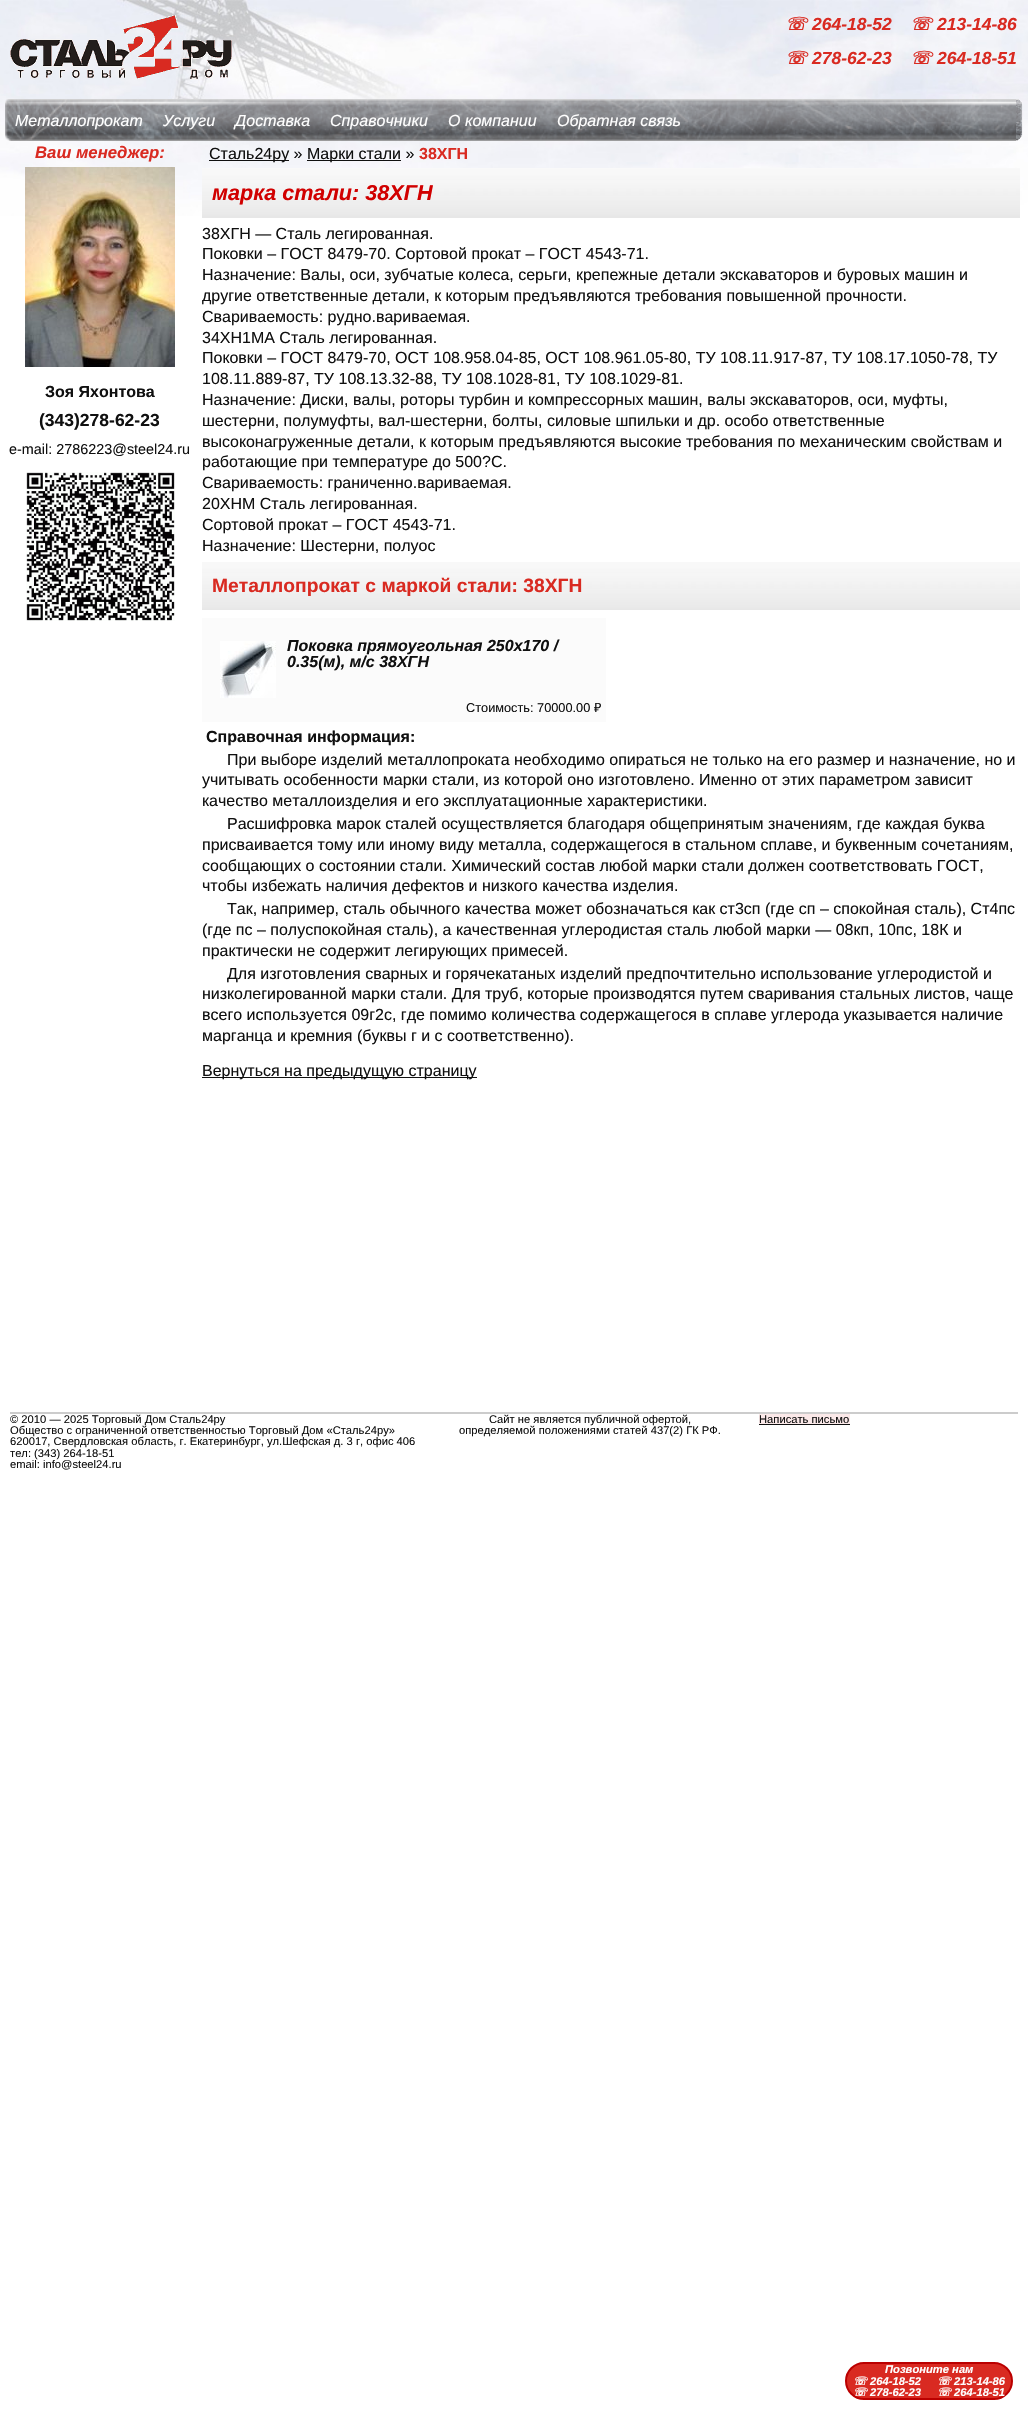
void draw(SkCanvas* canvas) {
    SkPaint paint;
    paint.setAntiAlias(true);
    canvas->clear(0xFFFFFFFF);
    canvas->drawImageRect(SkImages::DeferredFromEncodedData(SkData::MakeFromFileName("img1.png")), SkRect::MakeXYWH(0, 0, 1028, 216), SkSamplingOptions());
    canvas->drawImageRect(SkImages::DeferredFromEncodedData(SkData::MakeFromFileName("img2.png")), SkRect::MakeXYWH(10, 15, 222, 65), SkSamplingOptions());
    SkFont font1(fontMgr->matchFamilyStyle("DejaVu Sans", SkFontStyle::BoldItalic()), 17.5f);
    font1.setSubpixel(true);
    paint.setColor(0xFFD92A21);
    canvas->drawString("☏", 785, 30, font1, paint);
    SkFont font2(fontMgr->matchFamilyStyle("Liberation Sans", SkFontStyle::BoldItalic()), 17.5f);
    font2.setSubpixel(true);
    canvas->drawString("264-18-52", 812, 30, font2, paint);
    canvas->drawString("☏", 910, 30, font1, paint);
    canvas->drawString("213-14-86", 937, 30, font2, paint);
    canvas->drawString("☏", 785, 64, font1, paint);
    canvas->drawString("278-62-23", 812, 64, font2, paint);
    canvas->drawString("☏", 910, 64, font1, paint);
    canvas->drawString("264-18-51", 937, 64, font2, paint);
    canvas->drawImageRect(SkImages::DeferredFromEncodedData(SkData::MakeFromFileName("img3.png")), SkRect::MakeXYWH(5, 99, 1011, 42), SkSamplingOptions());
    SkFont font3(fontMgr->matchFamilyStyle("Liberation Sans", SkFontStyle::Italic()), 16);
    font3.setSubpixel(true);
    paint.setColor(0xFFFFFFFF);
    canvas->drawString("Металлопрокат", 15, 126, font3, paint);
    canvas->drawString("Услуги", 163, 126, font3, paint);
    canvas->drawString("Доставка", 235, 126, font3, paint);
    canvas->drawString("Справочники", 330, 126, font3, paint);
    canvas->drawString("О компании", 448, 126, font3, paint);
    canvas->drawString("Обратная связь", 557, 126, font3, paint);
    canvas->drawImageRect(SkImages::DeferredFromEncodedData(SkData::MakeFromFileName("img4.png")), SkRect::MakeXYWH(1016, 99, 7, 42), SkSamplingOptions());
    SkFont font4(fontMgr->matchFamilyStyle("Liberation Sans", SkFontStyle::BoldItalic()), 16.75f);
    font4.setSubpixel(true);
    paint.setColor(0xFFD92A21);
    canvas->drawString("Ваш менеджер:", 35, 158, font4, paint);
    canvas->drawImageRect(SkImages::DeferredFromEncodedData(SkData::MakeFromFileName("img5.png")), SkRect::MakeXYWH(25, 167, 150, 200), SkSamplingOptions());
    SkFont font5(fontMgr->matchFamilyStyle("Liberation Sans", SkFontStyle::Bold()), 16);
    font5.setSubpixel(true);
    paint.setColor(0xFF101010);
    canvas->drawString("Зоя Яхонтова", 45, 397, font5, paint);
    SkFont font6(fontMgr->matchFamilyStyle("Liberation Sans", SkFontStyle::Bold()), 17.5f);
    font6.setSubpixel(true);
    canvas->drawString("(343)278-62-23", 39, 426, font6, paint);
    SkFont font7(fontMgr->matchFamilyStyle("Liberation Sans", SkFontStyle::Normal()), 14.4f);
    font7.setSubpixel(true);
    canvas->drawString("e-mail: 2786223@steel24.ru", 9, 454, font7, paint);
    canvas->drawImageRect(SkImages::DeferredFromEncodedData(SkData::MakeFromFileName("img6.png")), SkRect::MakeXYWH(26, 472, 149, 149), SkSamplingOptions());
    canvas->drawRect(SkRect::MakeXYWH(209, 160, 80, 1), paint);
    SkFont font8(fontMgr->matchFamilyStyle("Liberation Sans", SkFontStyle::Normal()), 16);
    font8.setSubpixel(true);
    canvas->drawString("Сталь24ру »", 209, 159, font8, paint);
    canvas->drawRect(SkRect::MakeXYWH(307, 160, 94, 1), paint);
    canvas->drawString("Марки стали »", 307, 159, font8, paint);
    paint.setColor(0xFFD92A21);
    canvas->drawString("38ХГН", 419, 159, font5, paint);
    canvas->drawImageRect(SkImages::DeferredFromEncodedData(SkData::MakeFromFileName("img7.png")), SkRect::MakeXYWH(202, 168, 818, 50), SkSamplingOptions());
    SkFont font9(fontMgr->matchFamilyStyle("Liberation Sans", SkFontStyle::BoldItalic()), 21.6f);
    font9.setSubpixel(true);
    paint.setColor(0xFFD10000);
    canvas->drawString("марка стали: 38ХГН", 212, 200, font9, paint);
    paint.setColor(0xFF101010);
    canvas->drawString("38ХГН — Сталь легированная.", 202, 239, font8, paint);
    canvas->drawString("Поковки – ГОСТ 8479-70. Сортовой прокат – ГОСТ 4543-71.", 202, 259, font8, paint);
    canvas->drawString("Назначение: Валы, оси, зубчатые колеса, серьги, крепежные детали экскаваторов и буровых машин и", 202, 280, font8, paint);
    canvas->drawString("другие ответственные детали, к которым предъявляются требования повышенной прочности.", 202, 301, font8, paint);
    canvas->drawString("Свариваемость: рудно.вариваемая.", 202, 322, font8, paint);
    canvas->drawString("34ХН1МА Сталь легированная.", 202, 343, font8, paint);
    canvas->drawString("Поковки – ГОСТ 8479-70, ОСТ 108.958.04-85, ОСТ 108.961.05-80, ТУ 108.11.917-87, ТУ 108.17.1050-78, ТУ", 202, 363, font8, paint);
    canvas->drawString("108.11.889-87, ТУ 108.13.32-88, ТУ 108.1028-81, ТУ 108.1029-81.", 202, 384, font8, paint);
    canvas->drawString("Назначение: Диски, валы, роторы турбин и компрессорных машин, валы экскаваторов, оси, муфты,", 202, 405, font8, paint);
    canvas->drawString("шестерни, полумуфты, вал-шестерни, болты, силовые шпильки и др. особо ответственные", 202, 426, font8, paint);
    canvas->drawString("высоконагруженные детали, к которым предъявляются высокие требования по механическим свойствам и", 202, 447, font8, paint);
    canvas->drawString("работающие при температуре до 500?C.", 202, 467, font8, paint);
    canvas->drawString("Свариваемость: граниченно.вариваемая.", 202, 488, font8, paint);
    canvas->drawString("20ХНМ Сталь легированная.", 202, 509, font8, paint);
    canvas->drawString("Сортовой прокат – ГОСТ 4543-71.", 202, 530, font8, paint);
    canvas->drawString("Назначение: Шестерни, полуос", 202, 551, font8, paint);
    canvas->drawImageRect(SkImages::DeferredFromEncodedData(SkData::MakeFromFileName("img8.png")), SkRect::MakeXYWH(202, 562, 818, 48), SkSamplingOptions());
    SkFont font10(fontMgr->matchFamilyStyle("Liberation Sans", SkFontStyle::Bold()), 19.25f);
    font10.setSubpixel(true);
    paint.setColor(0xFFD92A21);
    canvas->drawString("Металлопрокат с маркой стали: 38ХГН", 212, 592, font10, paint);
    paint.setColor(0xFFFBFBFB);
    canvas->drawRect(SkRect::MakeXYWH(202, 618, 404, 104), paint);
    canvas->drawImageRect(SkImages::DeferredFromEncodedData(SkData::MakeFromFileName("img9.png")), SkRect::MakeXYWH(220, 641, 56, 57), SkSamplingOptions());
    SkFont font11(fontMgr->matchFamilyStyle("Liberation Sans", SkFontStyle::BoldItalic()), 16);
    font11.setSubpixel(true);
    paint.setColor(0xFF101010);
    canvas->drawString("Поковка прямоугольная 250х170 /", 287, 651, font11, paint);
    canvas->drawString("0.35(м), м/с 38ХГН", 287, 667, font11, paint);
    SkFont font12(fontMgr->matchFamilyStyle("Liberation Sans", SkFontStyle::Normal()), 12.75f);
    font12.setSubpixel(true);
    canvas->drawString("Стоимость: 70000.00", 466, 712, font12, paint);
    SkFont font13(fontMgr->matchFamilyStyle("Noto Sans", SkFontStyle::Normal()), 12.75f);
    font13.setSubpixel(true);
    canvas->drawString("₽", 594, 712, font13, paint);
    canvas->drawString("Справочная информация:", 206, 742, font5, paint);
    canvas->drawString("При выборе изделий металлопроката необходимо опираться не только на его размер и назначение, но и", 227, 765, font8, paint);
    canvas->drawString("учитывать особенности марки стали, из которой оно изготовлено. Именно от этих параметром зависит", 202, 785, font8, paint);
    canvas->drawString("качество металлоизделия и его эксплуатационные характеристики.", 202, 806, font8, paint);
    canvas->drawString("Расшифровка марок сталей осуществляется благодаря общепринятым значениям, где каждая буква", 227, 829, font8, paint);
    canvas->drawString("присваивается тому или иному виду металла, содержащегося в стальном сплаве, и буквенным сочетаниям,", 202, 850, font8, paint);
    canvas->drawString("сообщающих о состоянии стали. Химический состав любой марки стали должен соответствовать ГОСТ,", 202, 871, font8, paint);
    canvas->drawString("чтобы избежать наличия дефектов и низкого качества изделия.", 202, 891, font8, paint);
    canvas->drawString("Так, например, сталь обычного качества может обозначаться как ст3сп (где сп – спокойная сталь), Ст4пс", 227, 914, font8, paint);
    canvas->drawString("(где пс – полуспокойная сталь), а качественная углеродистая сталь любой марки — 08кп, 10пс, 18К и", 202, 935, font8, paint);
    canvas->drawString("практически не содержит легирующих примесей.", 202, 956, font8, paint);
    canvas->drawString("Для изготовления сварных и горячекатаных изделий предпочтительно использование углеродистой и", 227, 979, font8, paint);
    canvas->drawString("низколегированной марки стали. Для труб, которые производятся путем сваривания стальных листов, чаще", 202, 999, font8, paint);
    canvas->drawString("всего используется 09г2с, где помимо количества содержащегося в сплаве углерода указывается наличие", 202, 1020, font8, paint);
    canvas->drawString("марганца и кремния (буквы г и с соответственно).", 202, 1041, font8, paint);
    canvas->drawRect(SkRect::MakeXYWH(202, 1077, 275, 1), paint);
    canvas->drawString("Вернуться на предыдущую страницу", 202, 1076, font8, paint);
    paint.setColor(0xFFCCCCCC);
    canvas->drawRect(SkRect::MakeXYWH(10, 1412, 1008, 2), paint);
    SkFont font14(fontMgr->matchFamilyStyle("Liberation Sans", SkFontStyle::Normal()), 11.2f);
    font14.setSubpixel(true);
    paint.setColor(0xFF101010);
    canvas->drawString("© 2010 — 2025 Торговый Дом Сталь24ру", 10, 1423, font14, paint);
    canvas->drawString("Общество с ограниченной ответственностью Торговый Дом «Сталь24ру»", 10, 1434, font14, paint);
    canvas->drawString("620017, Свердловская область, г. Екатеринбург, ул.Шефская д. 3 г, офис 406", 10, 1445, font14, paint);
    canvas->drawString("тел: (343) 264-18-51", 10, 1457, font14, paint);
    canvas->drawString("email: info@steel24.ru", 10, 1468, font14, paint);
    canvas->drawString("Сайт не является публичной офертой,", 489, 1423, font14, paint);
    canvas->drawString("определяемой положениями статей 437(2) ГК РФ.", 459, 1434, font14, paint);
    paint.setColor(0xFFFBE9E9);
    canvas->drawRect(SkRect::MakeXYWH(759, 1414, 91, 10), paint);
    paint.setColor(0xFF101010);
    canvas->drawString("Написать письмо", 759, 1423, font14, paint);
    canvas->drawRect(SkRect::MakeXYWH(759, 1424, 91, 1), paint);
    paint.setColor(0xFFD92A21);
    canvas->drawRoundRect(SkRect::MakeXYWH(846, 2363, 166, 36), 18, 18, paint);
    paint.setStyle(SkPaint::kStroke_Style);
    paint.setStrokeWidth(2);
    paint.setColor(0xFFBB0000);
    canvas->drawRoundRect(SkRect::MakeXYWH(846, 2363, 166, 36), 18, 18, paint);
    SkFont font15(fontMgr->matchFamilyStyle("Liberation Sans", SkFontStyle::BoldItalic()), 11.2f);
    font15.setSubpixel(true);
    paint.setStyle(SkPaint::kFill_Style);
    paint.setColor(0xFFFFFFFF);
    canvas->drawString("Позвоните нам", 885, 2373, font15, paint);
    SkFont font16(fontMgr->matchFamilyStyle("DejaVu Sans", SkFontStyle::BoldItalic()), 11.2f);
    font16.setSubpixel(true);
    canvas->drawString("☏", 853, 2385, font16, paint);
    canvas->drawString("264-18-52", 870, 2385, font15, paint);
    canvas->drawString("☏", 937, 2385, font16, paint);
    canvas->drawString("213-14-86", 954, 2385, font15, paint);
    canvas->drawString("☏", 853, 2396, font16, paint);
    canvas->drawString("278-62-23", 870, 2396, font15, paint);
    canvas->drawString("☏", 937, 2396, font16, paint);
    canvas->drawString("264-18-51", 954, 2396, font15, paint);
}
